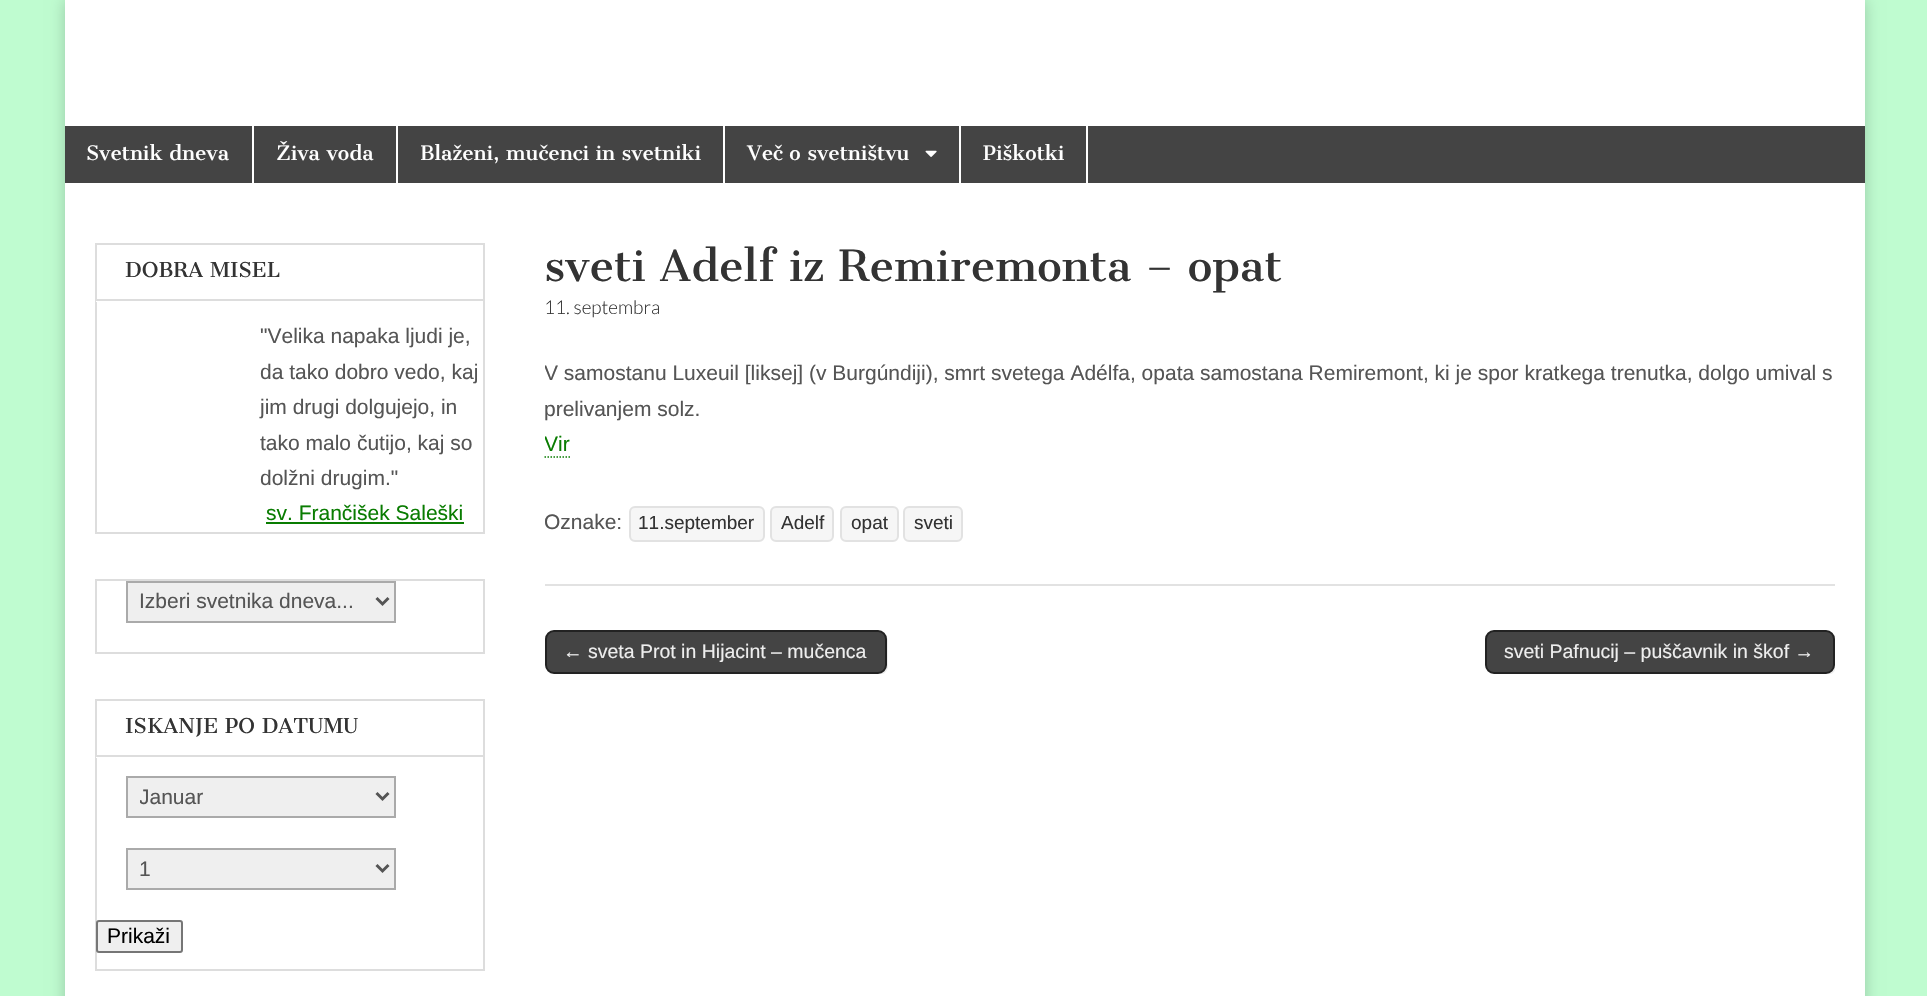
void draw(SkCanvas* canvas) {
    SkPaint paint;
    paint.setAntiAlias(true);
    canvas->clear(0xFFBFFCD0);
    paint.setColor(0x33000000);
    paint.setMaskFilter(SkMaskFilter::MakeBlur(kNormal_SkBlurStyle, 7.5f));
    canvas->drawRect(SkRect::MakeXYWH(65, 0, 1800, 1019), paint);
    paint.setMaskFilter(nullptr);
    paint.setColor(0xFFFFFFFF);
    canvas->drawRect(SkRect::MakeXYWH(65, 0, 1800, 996), paint);
    paint.setColor(0xFF444444);
    canvas->drawRect(SkRect::MakeXYWH(65, 126, 1800, 57), paint);
    paint.setColor(0xFFFFFFFF);
    canvas->drawRect(SkRect::MakeXYWH(252, 126, 2, 57), paint);
    SkFont font1(fontMgr->matchFamilyStyle("Cantata One", SkFontStyle::Normal()), 19.5f);
    font1.setSubpixel(true);
    canvas->drawString("Svetnik dneva", 86, 160, font1, paint);
    canvas->drawRect(SkRect::MakeXYWH(396, 126, 2, 57), paint);
    canvas->drawString("Živa voda", 276, 160, font1, paint);
    canvas->drawRect(SkRect::MakeXYWH(723, 126, 2, 57), paint);
    canvas->drawString("Blaženi, mučenci in svetniki", 420, 160, font1, paint);
    canvas->drawRect(SkRect::MakeXYWH(959, 126, 2, 57), paint);
    canvas->drawString("Več o svetništvu", 747, 160, font1, paint);
    canvas->drawImageRect(SkImages::DeferredFromEncodedData(SkData::MakeFromFileName("img1.png")), SkRect::MakeXYWH(925, 150, 12, 7), SkSamplingOptions());
    canvas->drawRect(SkRect::MakeXYWH(1086, 126, 2, 57), paint);
    canvas->drawString("Piškotki", 983, 160, font1, paint);
    paint.setStyle(SkPaint::kStroke_Style);
    paint.setStrokeWidth(2);
    paint.setColor(0xFFDDDDDD);
    canvas->drawRect(SkRect::MakeXYWH(96, 244, 388, 289), paint);
    paint.setStyle(SkPaint::kFill_Style);
    paint.setColor(0xFFFFFFFF);
    canvas->drawRect(SkRect::MakeXYWH(96, 301, 1, 1), paint);
    paint.setColor(0xFFDDDDDD);
    canvas->drawRect(SkRect::MakeXYWH(96, 299, 387, 2), paint);
    SkFont font2(fontMgr->matchFamilyStyle("Cantata One", SkFontStyle::Normal()), 20);
    font2.setSubpixel(true);
    paint.setColor(0xFF333333);
    canvas->drawString("DOBRA MISEL", 125, 277, font2, paint);
    SkFont font3(fontMgr->matchFamilyStyle("Liberation Sans", SkFontStyle::Normal()), 21);
    font3.setSubpixel(true);
    paint.setColor(0xFF555555);
    canvas->drawString("\"Velika napaka ljudi je,", 260, 343, font3, paint);
    canvas->drawString("da tako dobro vedo, kaj", 260, 379, font3, paint);
    canvas->drawString("jim drugi dolgujejo, in", 260, 414, font3, paint);
    canvas->drawString("tako malo čutijo, kaj so", 260, 450, font3, paint);
    canvas->drawString("dolžni drugim.\"", 260, 485, font3, paint);
    paint.setColor(0xFF097C01);
    canvas->drawString("sv. Frančišek Saleški", 266, 520, font3, paint);
    canvas->drawRect(SkRect::MakeXYWH(266, 522, 198, 2), paint);
    paint.setStyle(SkPaint::kStroke_Style);
    paint.setColor(0xFFDDDDDD);
    canvas->drawRect(SkRect::MakeXYWH(96, 580, 388, 73), paint);
    paint.setStyle(SkPaint::kFill_Style);
    paint.setColor(0xFFEFEFEF);
    canvas->drawRect(SkRect::MakeXYWH(127, 582, 268, 40), paint);
    paint.setStyle(SkPaint::kStroke_Style);
    paint.setColor(0xFFAAAAAA);
    canvas->drawRect(SkRect::MakeXYWH(127, 582, 268, 40), paint);
    paint.setStrokeWidth(3);
    paint.setColor(0xFF555555);
    canvas->drawPath(SkPathBuilder().moveTo(376.5f, 598).lineTo(382.5f, 604).lineTo(388.5f, 598).detach(), paint);
    paint.setStyle(SkPaint::kFill_Style);
    canvas->drawString("Izberi svetnika dneva...", 139, 608, font3, paint);
    paint.setStyle(SkPaint::kStroke_Style);
    paint.setStrokeWidth(2);
    paint.setColor(0xFFDDDDDD);
    canvas->drawRect(SkRect::MakeXYWH(96, 700, 388, 270), paint);
    paint.setStyle(SkPaint::kFill_Style);
    paint.setColor(0xFFFFFFFF);
    canvas->drawRect(SkRect::MakeXYWH(96, 757, 1, 1), paint);
    paint.setColor(0xFFDDDDDD);
    canvas->drawRect(SkRect::MakeXYWH(96, 755, 387, 2), paint);
    paint.setColor(0xFF333333);
    canvas->drawString("ISKANJE PO DATUMU", 125, 733, font2, paint);
    paint.setColor(0xFFEFEFEF);
    canvas->drawRect(SkRect::MakeXYWH(127, 777, 268, 40), paint);
    paint.setStyle(SkPaint::kStroke_Style);
    paint.setColor(0xFFAAAAAA);
    canvas->drawRect(SkRect::MakeXYWH(127, 777, 268, 40), paint);
    paint.setStrokeWidth(3);
    paint.setColor(0xFF555555);
    canvas->drawPath(SkPathBuilder().moveTo(376.5f, 793).lineTo(382.5f, 799).lineTo(388.5f, 793).detach(), paint);
    canvas->save();
    canvas->clipRect(SkRect::MakeXYWH(140, 783, 225, 27));
    paint.setStyle(SkPaint::kFill_Style);
    canvas->drawString("Januar", 139, 804, font3, paint);
    canvas->restore();
    paint.setColor(0xFFEFEFEF);
    canvas->drawRect(SkRect::MakeXYWH(127, 849, 268, 40), paint);
    paint.setStyle(SkPaint::kStroke_Style);
    paint.setStrokeWidth(2);
    paint.setColor(0xFFAAAAAA);
    canvas->drawRect(SkRect::MakeXYWH(127, 849, 268, 40), paint);
    paint.setStrokeWidth(3);
    paint.setColor(0xFF555555);
    canvas->drawPath(SkPathBuilder().moveTo(376.5f, 865).lineTo(382.5f, 871).lineTo(388.5f, 865).detach(), paint);
    paint.setStyle(SkPaint::kFill_Style);
    canvas->drawString("1", 139, 876, font3, paint);
    paint.setColor(0xFFEFEFEF);
    canvas->drawRoundRect(SkRect::MakeXYWH(97, 921, 85, 31), 2, 2, paint);
    paint.setStyle(SkPaint::kStroke_Style);
    paint.setStrokeWidth(2);
    paint.setColor(0xFF767676);
    canvas->drawRoundRect(SkRect::MakeXYWH(97, 921, 85, 31), 2, 2, paint);
    paint.setStyle(SkPaint::kFill_Style);
    paint.setColor(0xFF000000);
    canvas->drawString("Prikaži", 107, 943, font3, paint);
    paint.setColor(0xFFE2E2E2);
    canvas->drawRect(SkRect::MakeXYWH(545, 584, 1290, 2), paint);
    SkFont font4(fontMgr->matchFamilyStyle("Cantata One", SkFontStyle::Normal()), 42);
    font4.setSubpixel(true);
    paint.setColor(0xFF333333);
    canvas->drawString("sveti Adelf iz Remiremonta – opat", 544, 281, font4, paint);
    SkFont font5(fontMgr->matchFamilyStyle("Lato", SkFontStyle(300, SkFontStyle::kNormal_Width, SkFontStyle::kUpright_Slant)), 19);
    font5.setSubpixel(true);
    canvas->drawString("11. septembra", 544, 314, font5, paint);
    canvas->save();
    canvas->clipRect(SkRect::MakeXYWH(545, 336, 1290, 147));
    paint.setColor(0xFF555555);
    canvas->drawString("V samostanu Luxeuil [liksej] (v Burgúndiji), smrt svetega Adélfa, opata samostana Remiremont, ki je spor kratkega trenutka, dolgo umival s", 544, 380, font3, paint);
    canvas->restore();
    canvas->drawString("prelivanjem solz.", 544, 416, font3, paint);
    canvas->save();
    canvas->clipRect(SkRect::MakeXYWH(545, 336, 1290, 147));
    paint.setColor(0xFF097C01);
    canvas->drawString("Vir", 544, 451, font3, paint);
    canvas->restore();
    paint.setStyle(SkPaint::kStroke_Style);
    paint.setStrokeWidth(1.5f);
    paint.setPathEffect(SkDashPathEffect::Make({{1.5f, 1.5f}}, 0));
    canvas->drawPath(SkPathBuilder().moveTo(544.5f, 457).lineTo(570, 457).detach(), paint);
    paint.setPathEffect(nullptr);
    paint.setStyle(SkPaint::kFill_Style);
    paint.setColor(0xFF555555);
    canvas->drawString("Oznake:", 544, 529, font3, paint);
    paint.setColor(0xFFF6F6F6);
    canvas->drawRoundRect(SkRect::MakeXYWH(630, 507, 134, 34), 5, 5, paint);
    paint.setStyle(SkPaint::kStroke_Style);
    paint.setStrokeWidth(2);
    paint.setColor(0xFFE2E2E2);
    canvas->drawRoundRect(SkRect::MakeXYWH(630, 507, 134, 34), 5, 5, paint);
    SkFont font6(fontMgr->matchFamilyStyle("Liberation Sans", SkFontStyle::Normal()), 19);
    font6.setSubpixel(true);
    paint.setStyle(SkPaint::kFill_Style);
    paint.setColor(0xFF333333);
    canvas->drawString("11.september", 638, 529, font6, paint);
    paint.setColor(0xFFF6F6F6);
    canvas->drawRoundRect(SkRect::MakeXYWH(771, 507, 62, 34), 5, 5, paint);
    paint.setStyle(SkPaint::kStroke_Style);
    paint.setColor(0xFFE2E2E2);
    canvas->drawRoundRect(SkRect::MakeXYWH(771, 507, 62, 34), 5, 5, paint);
    paint.setStyle(SkPaint::kFill_Style);
    paint.setColor(0xFF333333);
    canvas->drawString("Adelf", 781, 529, font6, paint);
    paint.setColor(0xFFF6F6F6);
    canvas->drawRoundRect(SkRect::MakeXYWH(841, 507, 57, 34), 5, 5, paint);
    paint.setStyle(SkPaint::kStroke_Style);
    paint.setColor(0xFFE2E2E2);
    canvas->drawRoundRect(SkRect::MakeXYWH(841, 507, 57, 34), 5, 5, paint);
    paint.setStyle(SkPaint::kFill_Style);
    paint.setColor(0xFF333333);
    canvas->drawString("opat", 851, 529, font6, paint);
    paint.setColor(0xFFF6F6F6);
    canvas->drawRoundRect(SkRect::MakeXYWH(904, 507, 58, 34), 5, 5, paint);
    paint.setStyle(SkPaint::kStroke_Style);
    paint.setColor(0xFFE2E2E2);
    canvas->drawRoundRect(SkRect::MakeXYWH(904, 507, 58, 34), 5, 5, paint);
    paint.setStyle(SkPaint::kFill_Style);
    paint.setColor(0xFF333333);
    canvas->drawString("sveti", 914, 529, font6, paint);
    canvas->save();
    canvas->clipRect(SkRect::MakeXYWH(545, 630, 1290, 44));
    paint.setColor(0xFFEEEEEE);
    canvas->drawPath(SkPathBuilder().moveTo(548, 672).cubicTo(550, 674, 552, 675, 555, 675).lineTo(879, 675).cubicTo(884, 675, 888, 671, 888, 666).lineTo(888, 641).cubicTo(888, 639, 887, 636, 885, 635).cubicTo(886, 636, 886, 637, 886, 639).lineTo(886, 664).cubicTo(886, 669, 882, 674, 878, 674).lineTo(554, 674).cubicTo(551, 674, 549, 673, 548, 672).close().detach(), paint);
    canvas->restore();
    paint.setColor(0xFF444444);
    canvas->drawRoundRect(SkRect::MakeXYWH(546, 631, 340, 42), 8, 8, paint);
    paint.setStyle(SkPaint::kStroke_Style);
    paint.setColor(0xFF222222);
    canvas->drawRoundRect(SkRect::MakeXYWH(546, 631, 340, 42), 8, 8, paint);
    SkFont font7(fontMgr->matchFamilyStyle("Liberation Sans", SkFontStyle::Normal()), 19.5f);
    font7.setSubpixel(true);
    paint.setStyle(SkPaint::kFill_Style);
    paint.setColor(0xFFEEEEEE);
    canvas->drawString("← sveta Prot in Hijacint – mučenca", 563, 658, font7, paint);
    canvas->save();
    canvas->clipRect(SkRect::MakeXYWH(545, 630, 1290, 44));
    canvas->drawPath(SkPathBuilder().moveTo(1490, 672).cubicTo(1491, 674, 1494, 675, 1496, 675).lineTo(1827, 675).cubicTo(1832, 675, 1836, 671, 1836, 666).lineTo(1836, 641).cubicTo(1836, 639, 1835, 636, 1833, 635).cubicTo(1834, 636, 1834, 637, 1834, 639).lineTo(1834, 664).cubicTo(1834, 669, 1830, 674, 1826, 674).lineTo(1494, 674).cubicTo(1492, 674, 1491, 673, 1490, 672).close().detach(), paint);
    canvas->restore();
    paint.setColor(0xFF444444);
    canvas->drawRoundRect(SkRect::MakeXYWH(1486, 631, 348, 42), 8, 8, paint);
    paint.setStyle(SkPaint::kStroke_Style);
    paint.setColor(0xFF222222);
    canvas->drawRoundRect(SkRect::MakeXYWH(1486, 631, 348, 42), 8, 8, paint);
    paint.setStyle(SkPaint::kFill_Style);
    paint.setColor(0xFFEEEEEE);
    canvas->drawString("sveti Pafnucij – puščavnik in škof →", 1504, 658, font7, paint);
}
